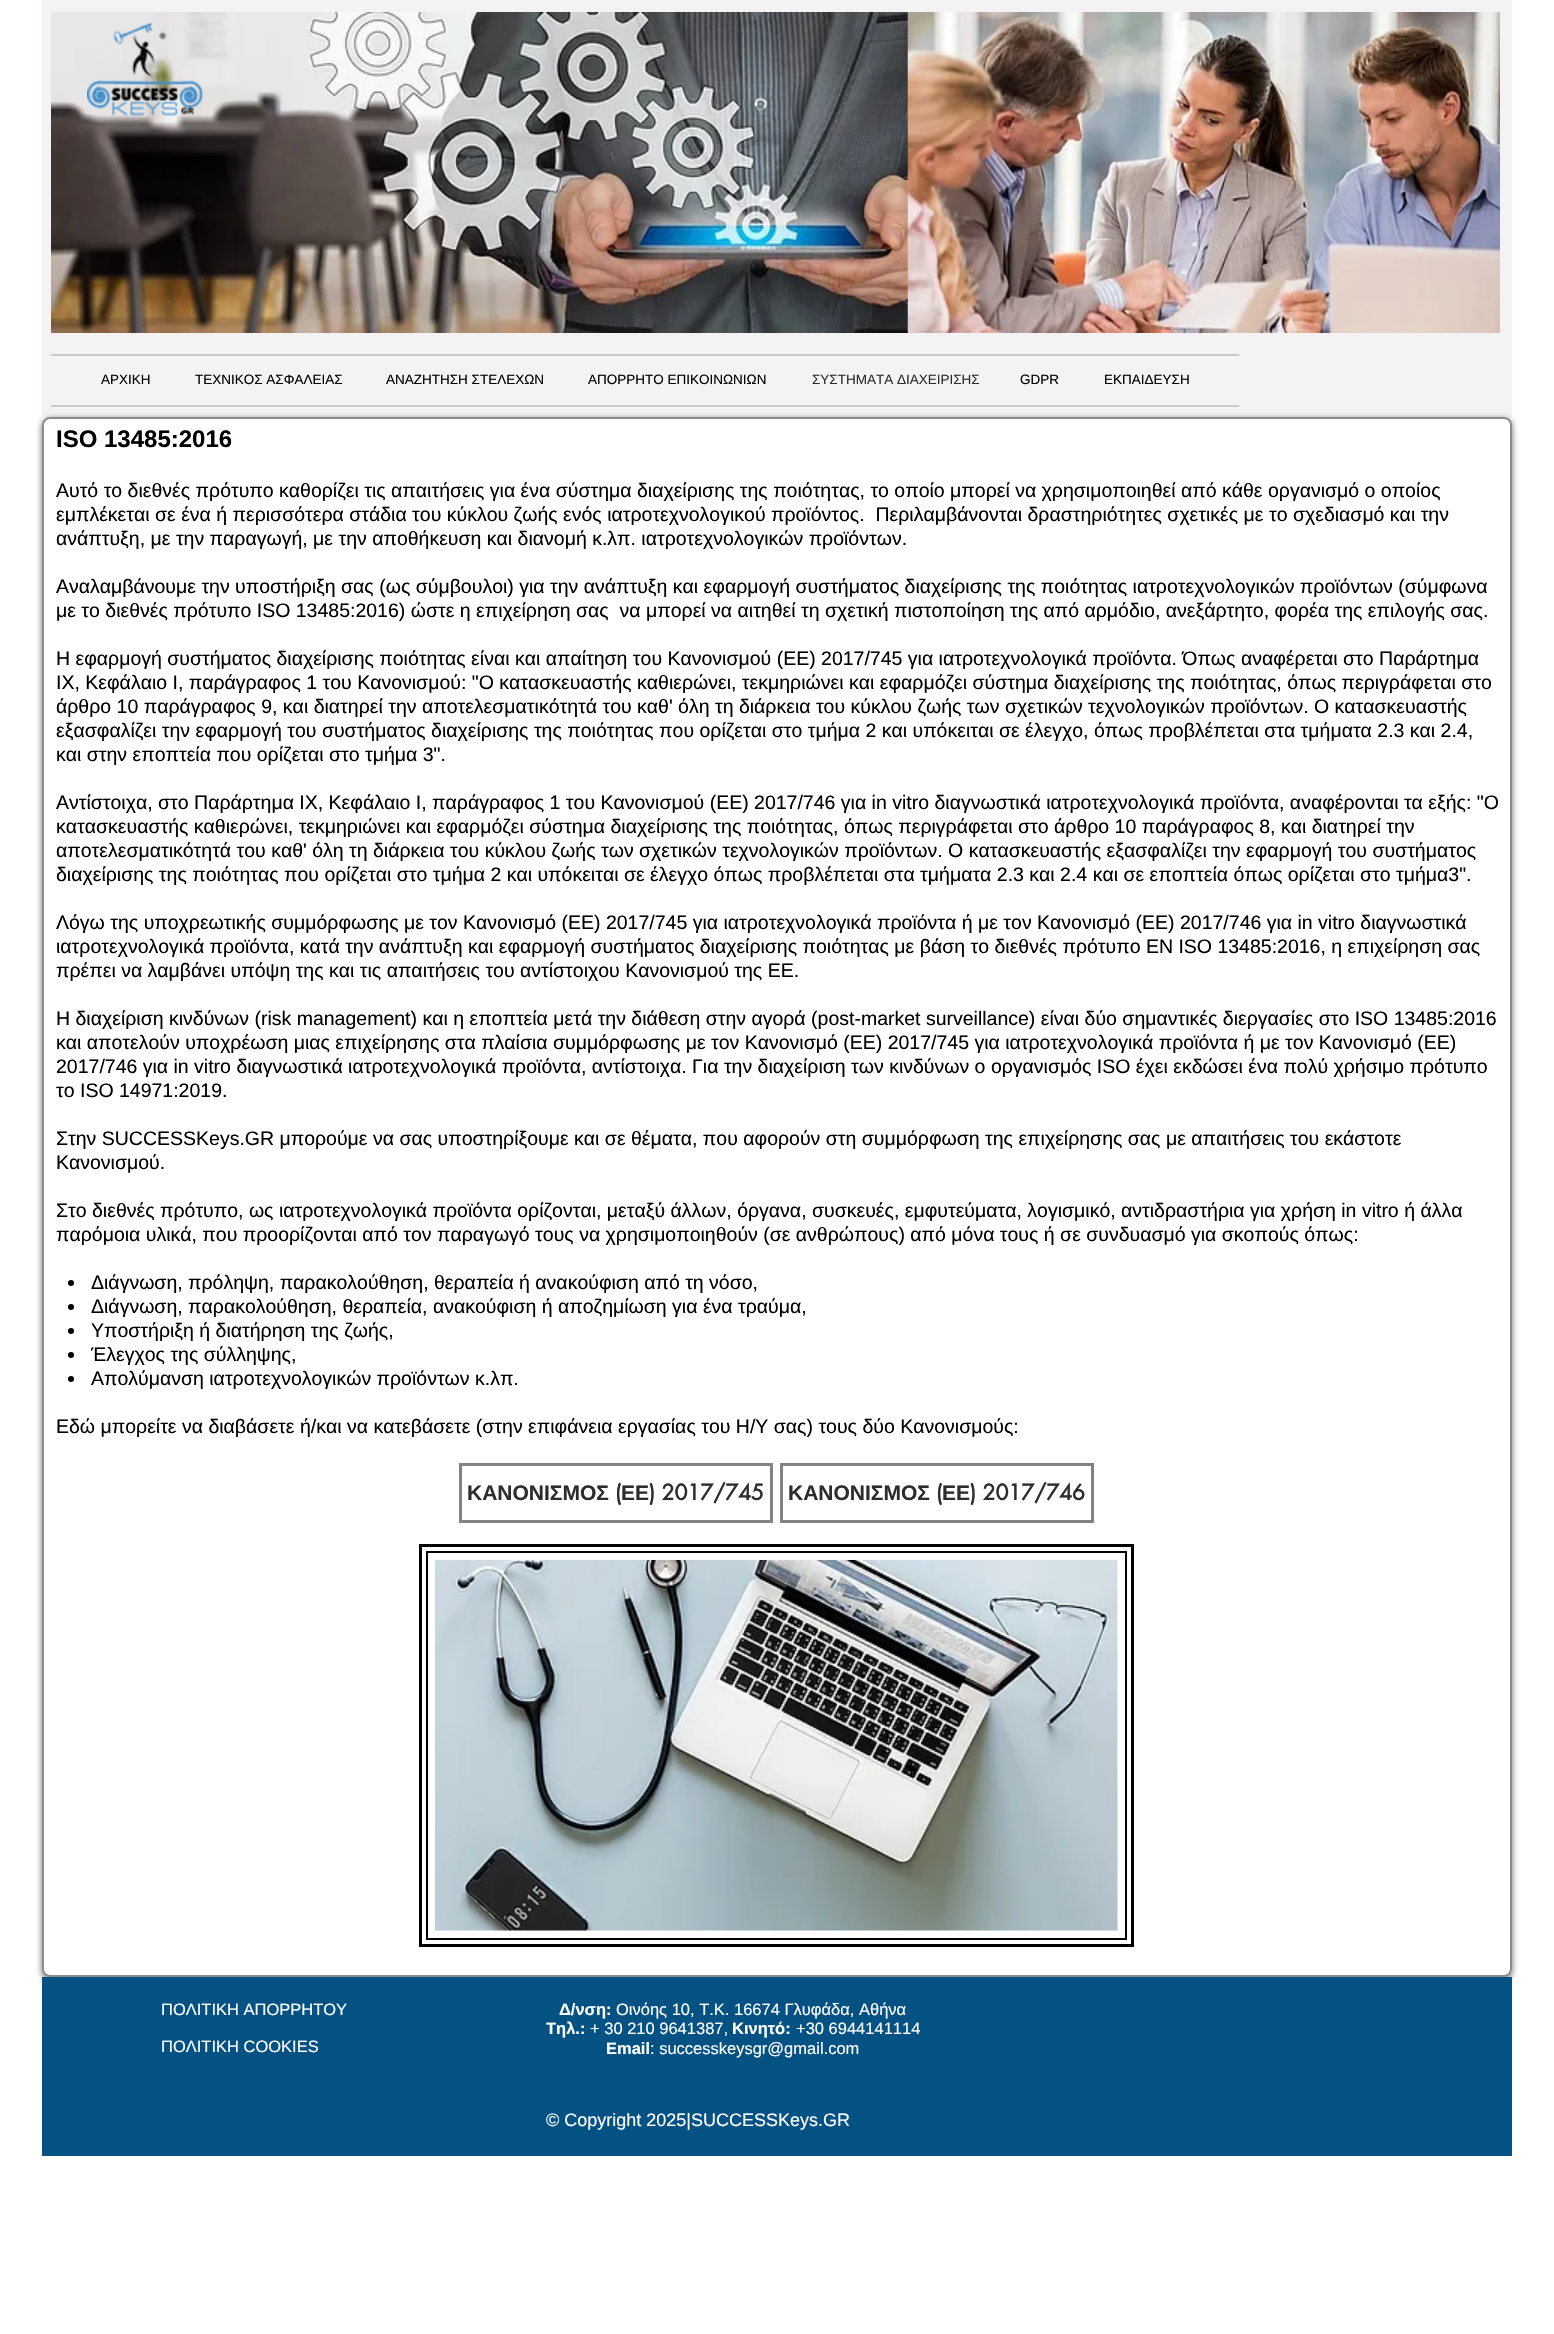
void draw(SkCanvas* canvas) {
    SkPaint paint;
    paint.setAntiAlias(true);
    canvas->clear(0xFFFFFFFF);
    paint.setColor(0xFFF5F2F3);
    canvas->drawRect(SkRect::MakeXYWH(42, 0, 1470, 417), paint);
    canvas->drawImageRect(SkImages::DeferredFromEncodedData(SkData::MakeFromFileName("img1.png")), SkRect::MakeXYWH(51, 12, 857, 321), SkSamplingOptions());
    canvas->drawImageRect(SkImages::DeferredFromEncodedData(SkData::MakeFromFileName("img2.png")), SkRect::MakeXYWH(907, 12, 593, 321), SkSamplingOptions());
    canvas->drawImageRect(SkImages::DeferredFromEncodedData(SkData::MakeFromFileName("img3.png")), SkRect::MakeXYWH(87, 22, 116, 94), SkSamplingOptions());
    paint.setColor(0xFFCACACA);
    canvas->drawRect(SkRect::MakeXYWH(51, 354, 1188, 2), paint);
    canvas->drawRect(SkRect::MakeXYWH(51, 405, 1188, 2), paint);
    SkFont font1(fontMgr->matchFamilyStyle("Liberation Sans", SkFontStyle::Normal()), 13.5f);
    font1.setSubpixel(true);
    paint.setColor(0xFF000000);
    canvas->drawString("ΑΡΧΙΚΗ", 101, 384, font1, paint);
    canvas->drawString("ΤΕΧΝΙΚΟΣ ΑΣΦΑΛΕΙΑΣ", 195, 384, font1, paint);
    canvas->drawString("ΑΝΑΖΗΤΗΣΗ ΣΤΕΛΕΧΩΝ", 386, 384, font1, paint);
    canvas->drawString("ΑΠΟΡΡΗΤΟ ΕΠΙΚΟΙΝΩΝΙΩΝ", 588, 384, font1, paint);
    paint.setColor(0xFF2D2D2F);
    canvas->drawString("ΣΥΣΤΗΜΑΤΑ ΔΙΑΧΕΙΡΙΣΗΣ", 812, 384, font1, paint);
    paint.setColor(0xFF000000);
    canvas->drawString("GDPR", 1020, 384, font1, paint);
    canvas->drawString("ΕΚΠΑΙΔΕΥΣΗ", 1104, 384, font1, paint);
    paint.setColor(0x99000000);
    paint.setMaskFilter(SkMaskFilter::MakeBlur(kNormal_SkBlurStyle, 3));
    canvas->drawRoundRect(SkRect::MakeXYWH(42, 419, 1470, 1560), 8, 8, paint);
    paint.setMaskFilter(nullptr);
    paint.setColor(0xFFFFFFFF);
    canvas->drawRoundRect(SkRect::MakeXYWH(42, 417, 1470, 1560), 8, 8, paint);
    paint.setStyle(SkPaint::kStroke_Style);
    paint.setStrokeWidth(2);
    paint.setColor(0x8C2D2D2F);
    canvas->drawRoundRect(SkRect::MakeXYWH(43, 418, 1468, 1558), 7, 7, paint);
    SkFont font2(fontMgr->matchFamilyStyle("Liberation Sans", SkFontStyle::Bold()), 24);
    font2.setSubpixel(true);
    paint.setStyle(SkPaint::kFill_Style);
    paint.setColor(0xFF000000);
    canvas->drawString("ISO 13485:2016", 56, 447, font2, paint);
    SkFont font3(fontMgr->matchFamilyStyle("Liberation Sans", SkFontStyle::Normal()), 19.5f);
    font3.setSubpixel(true);
    canvas->drawString("Αυτό το διεθνές πρότυπο καθορίζει τις απαιτήσεις για ένα σύστημα διαχείρισης της ποιότητας, το οποίο μπορεί να χρησιμοποιηθεί από κάθε οργανισμό ο οποίος", 56, 497, font3, paint);
    canvas->drawString("εμπλέκεται σε ένα ή περισσότερα στάδια του κύκλου ζωής ενός ιατροτεχνολογικού προϊόντος.  Περιλαμβάνονται δραστηριότητες σχετικές με το σχεδιασμό και την", 56, 521, font3, paint);
    canvas->drawString("ανάπτυξη, με την παραγωγή, με την αποθήκευση και διανομή κ.λπ. ιατροτεχνολογικών προϊόντων.", 56, 545, font3, paint);
    canvas->drawString("Αναλαμβάνουμε την υποστήριξη σας (ως σύμβουλοι) για την ανάπτυξη και εφαρμογή συστήματος διαχείρισης της ποιότητας ιατροτεχνολογικών προϊόντων (σύμφωνα", 56, 593, font3, paint);
    canvas->drawString("με το διεθνές πρότυπο ISO 13485:2016) ώστε η επιχείρηση σας  να μπορεί να αιτηθεί τη σχετική πιστοποίηση της από αρμόδιο, ανεξάρτητο, φορέα της επιλογής σας.", 56, 617, font3, paint);
    canvas->drawString("Η εφαρμογή συστήματος διαχείρισης ποιότητας είναι και απαίτηση του Κανονισμού (ΕΕ) 2017/745 για ιατροτεχνολογικά προϊόντα. Όπως αναφέρεται στο Παράρτημα", 56, 665, font3, paint);
    canvas->drawString("ΙΧ, Κεφάλαιο Ι, παράγραφος 1 του Κανονισμού: \"Ο κατασκευαστής καθιερώνει, τεκμηριώνει και εφαρμόζει σύστημα διαχείρισης της ποιότητας, όπως περιγράφεται στο", 56, 689, font3, paint);
    canvas->drawString("άρθρο 10 παράγραφος 9, και διατηρεί την αποτελεσματικότητά του καθ' όλη τη διάρκεια του κύκλου ζωής των σχετικών τεχνολογικών προϊόντων. Ο κατασκευαστής", 56, 713, font3, paint);
    canvas->drawString("εξασφαλίζει την εφαρμογή του συστήματος διαχείρισης της ποιότητας που ορίζεται στο τμήμα 2 και υπόκειται σε έλεγχο, όπως προβλέπεται στα τμήματα 2.3 και 2.4,", 56, 737, font3, paint);
    canvas->drawString("και στην εποπτεία που ορίζεται στο τμήμα 3\".", 56, 761, font3, paint);
    canvas->drawString("Αντίστοιχα, στο Παράρτημα ΙΧ, Κεφάλαιο Ι, παράγραφος 1 του Κανονισμού (ΕΕ) 2017/746 για in vitro διαγνωστικά ιατροτεχνολογικά προϊόντα, αναφέρονται τα εξής: \"Ο", 56, 809, font3, paint);
    canvas->drawString("κατασκευαστής καθιερώνει, τεκμηριώνει και εφαρμόζει σύστημα διαχείρισης της ποιότητας, όπως περιγράφεται στο άρθρο 10 παράγραφος 8, και διατηρεί την", 56, 833, font3, paint);
    canvas->drawString("αποτελεσματικότητά του καθ' όλη τη διάρκεια του κύκλου ζωής των σχετικών τεχνολογικών προϊόντων. Ο κατασκευαστής εξασφαλίζει την εφαρμογή του συστήματος", 56, 857, font3, paint);
    canvas->drawString("διαχείρισης της ποιότητας που ορίζεται στο τμήμα 2 και υπόκειται σε έλεγχο όπως προβλέπεται στα τμήματα 2.3 και 2.4 και σε εποπτεία όπως ορίζεται στο τμήμα3\".", 56, 881, font3, paint);
    canvas->drawString("Λόγω της υποχρεωτικής συμμόρφωσης με τον Κανονισμό (ΕΕ) 2017/745 για ιατροτεχνολογικά προϊόντα ή με τον Κανονισμό (ΕΕ) 2017/746 για in vitro διαγνωστικά", 56, 929, font3, paint);
    canvas->drawString("ιατροτεχνολογικά προϊόντα, κατά την ανάπτυξη και εφαρμογή συστήματος διαχείρισης ποιότητας με βάση το διεθνές πρότυπο EN ISO 13485:2016, η επιχείρηση σας", 56, 953, font3, paint);
    canvas->drawString("πρέπει να λαμβάνει υπόψη της και τις απαιτήσεις του αντίστοιχου Κανονισμού της ΕΕ.", 56, 977, font3, paint);
    canvas->drawString("Η διαχείριση κινδύνων (risk management) και η εποπτεία μετά την διάθεση στην αγορά (post-market surveillance) είναι δύο σημαντικές διεργασίες στο ISO 13485:2016", 56, 1025, font3, paint);
    canvas->drawString("και αποτελούν υποχρέωση μιας επιχείρησης στα πλαίσια συμμόρφωσης με τον Κανονισμό (ΕΕ) 2017/745 για ιατροτεχνολογικά προϊόντα ή με τον Κανονισμό (ΕΕ)", 56, 1049, font3, paint);
    canvas->drawString("2017/746 για in vitro διαγνωστικά ιατροτεχνολογικά προϊόντα, αντίστοιχα. Για την διαχείριση των κινδύνων ο οργανισμός ISO έχει εκδώσει ένα πολύ χρήσιμο πρότυπο", 56, 1073, font3, paint);
    canvas->drawString("το ISO 14971:2019.", 56, 1097, font3, paint);
    canvas->drawString("Στην SUCCESSKeys.GR μπορούμε να σας υποστηρίξουμε και σε θέματα, που αφορούν στη συμμόρφωση της επιχείρησης σας με απαιτήσεις του εκάστοτε", 56, 1145, font3, paint);
    canvas->drawString("Κανονισμού.", 56, 1169, font3, paint);
    canvas->drawString("Στο διεθνές πρότυπο, ως ιατροτεχνολογικά προϊόντα ορίζονται, μεταξύ άλλων, όργανα, συσκευές, εμφυτεύματα, λογισμικό, αντιδραστήρια για χρήση in vitro ή άλλα", 56, 1217, font3, paint);
    canvas->drawString("παρόμοια υλικά, που προορίζονται από τον παραγωγό τους να χρησιμοποιηθούν (σε ανθρώπους) από μόνα τους ή σε συνδυασμό για σκοπούς όπως:", 56, 1241, font3, paint);
    canvas->drawCircle(71, 1283, 3, paint);
    canvas->drawString("Διάγνωση, πρόληψη, παρακολούθηση, θεραπεία ή ανακούφιση από τη νόσο,", 91, 1289, font3, paint);
    canvas->drawCircle(71, 1307, 3, paint);
    canvas->drawString("Διάγνωση, παρακολούθηση, θεραπεία, ανακούφιση ή αποζημίωση για ένα τραύμα,", 91, 1313, font3, paint);
    canvas->drawCircle(71, 1331, 3, paint);
    canvas->drawString("Υποστήριξη ή διατήρηση της ζωής,", 91, 1337, font3, paint);
    canvas->drawCircle(71, 1355, 3, paint);
    canvas->drawString("Έλεγχος της σύλληψης,", 91, 1361, font3, paint);
    canvas->drawCircle(71, 1379, 3, paint);
    canvas->drawString("Απολύμανση ιατροτεχνολογικών προϊόντων κ.λπ.", 91, 1385, font3, paint);
    canvas->drawString("Εδώ μπορείτε να διαβάσετε ή/και να κατεβάσετε (στην επιφάνεια εργασίας του Η/Υ σας) τους δύο Κανονισμούς:", 56, 1433, font3, paint);
    paint.setStyle(SkPaint::kStroke_Style);
    paint.setStrokeWidth(3);
    paint.setColor(0xFF808286);
    canvas->drawRect(SkRect::MakeXYWH(460.5f, 1464.5f, 311, 57), paint);
    SkFont font4(fontMgr->matchFamilyStyle("Liberation Sans", SkFontStyle::Bold()), 21);
    font4.setSubpixel(true);
    paint.setStyle(SkPaint::kFill_Style);
    paint.setColor(0xFF2D2D2F);
    canvas->drawString("ΚΑΝΟΝΙΣΜΟΣ", 467, 1500, font4, paint);
    SkFont font5(fontMgr->matchFamilyStyle("futura", SkFontStyle::Bold()), 21);
    font5.setSubpixel(true);
    canvas->drawString("(", 615, 1500, font5, paint);
    canvas->drawString("ΕΕ", 621, 1500, font4, paint);
    canvas->drawString(") 2017/745", 649, 1500, font5, paint);
    paint.setStyle(SkPaint::kStroke_Style);
    paint.setColor(0xFF808286);
    canvas->drawRect(SkRect::MakeXYWH(781.5f, 1464.5f, 311, 57), paint);
    paint.setStyle(SkPaint::kFill_Style);
    paint.setColor(0xFF2D2D2F);
    canvas->drawString("ΚΑΝΟΝΙΣΜΟΣ", 788, 1500, font4, paint);
    canvas->drawString("(", 936, 1500, font5, paint);
    canvas->drawString("ΕΕ", 942, 1500, font4, paint);
    canvas->drawString(") 2017/746", 970, 1500, font5, paint);
    paint.setStyle(SkPaint::kStroke_Style);
    paint.setColor(0xFF000000);
    canvas->drawRect(SkRect::MakeXYWH(420.5f, 1545.5f, 712, 400), paint);
    canvas->drawImageRect(SkImages::DeferredFromEncodedData(SkData::MakeFromFileName("img4.png")), SkRect::MakeXYWH(435, 1560, 683, 371), SkSamplingOptions());
    paint.setStrokeWidth(2);
    canvas->drawRect(SkRect::MakeXYWH(427, 1552, 699, 387), paint);
    paint.setStyle(SkPaint::kFill_Style);
    paint.setColor(0xFF045184);
    canvas->drawRect(SkRect::MakeXYWH(42, 1977, 1470, 179), paint);
    SkFont font6(fontMgr->matchFamilyStyle("Liberation Sans", SkFontStyle::Normal()), 16.5f);
    font6.setSubpixel(true);
    paint.setColor(0xFFFFFFFF);
    canvas->drawString("ΠΟΛΙΤΙΚΗ ΑΠΟΡΡΗΤΟΥ", 161, 2015, font6, paint);
    SkFont font7(fontMgr->matchFamilyStyle("Liberation Sans", SkFontStyle::Bold()), 16.5f);
    font7.setSubpixel(true);
    canvas->drawString("Δ/νση:", 559, 2015, font7, paint);
    canvas->drawString("Οινόης 10, Τ.Κ. 16674 Γλυφάδα, Αθήνα", 616, 2015, font6, paint);
    canvas->drawString("Τηλ.:", 546, 2034, font7, paint);
    canvas->drawString("+ 30 210 9641387,", 590, 2034, font6, paint);
    canvas->drawString("Κινητό:", 732, 2034, font7, paint);
    canvas->drawString("+30 6944141114", 796, 2034, font6, paint);
    canvas->drawString("Email", 606, 2054, font7, paint);
    canvas->drawString(": successkeysgr@gmail.com", 650, 2054, font6, paint);
    canvas->drawString("ΠΟΛΙΤΙΚΗ COOKIES", 161, 2052, font6, paint);
    SkFont font8(fontMgr->matchFamilyStyle("Liberation Sans", SkFontStyle::Normal()), 18);
    font8.setSubpixel(true);
    canvas->drawString("© Copyright 2025|SUCCESSKeys.GR", 546, 2126, font8, paint);
}
